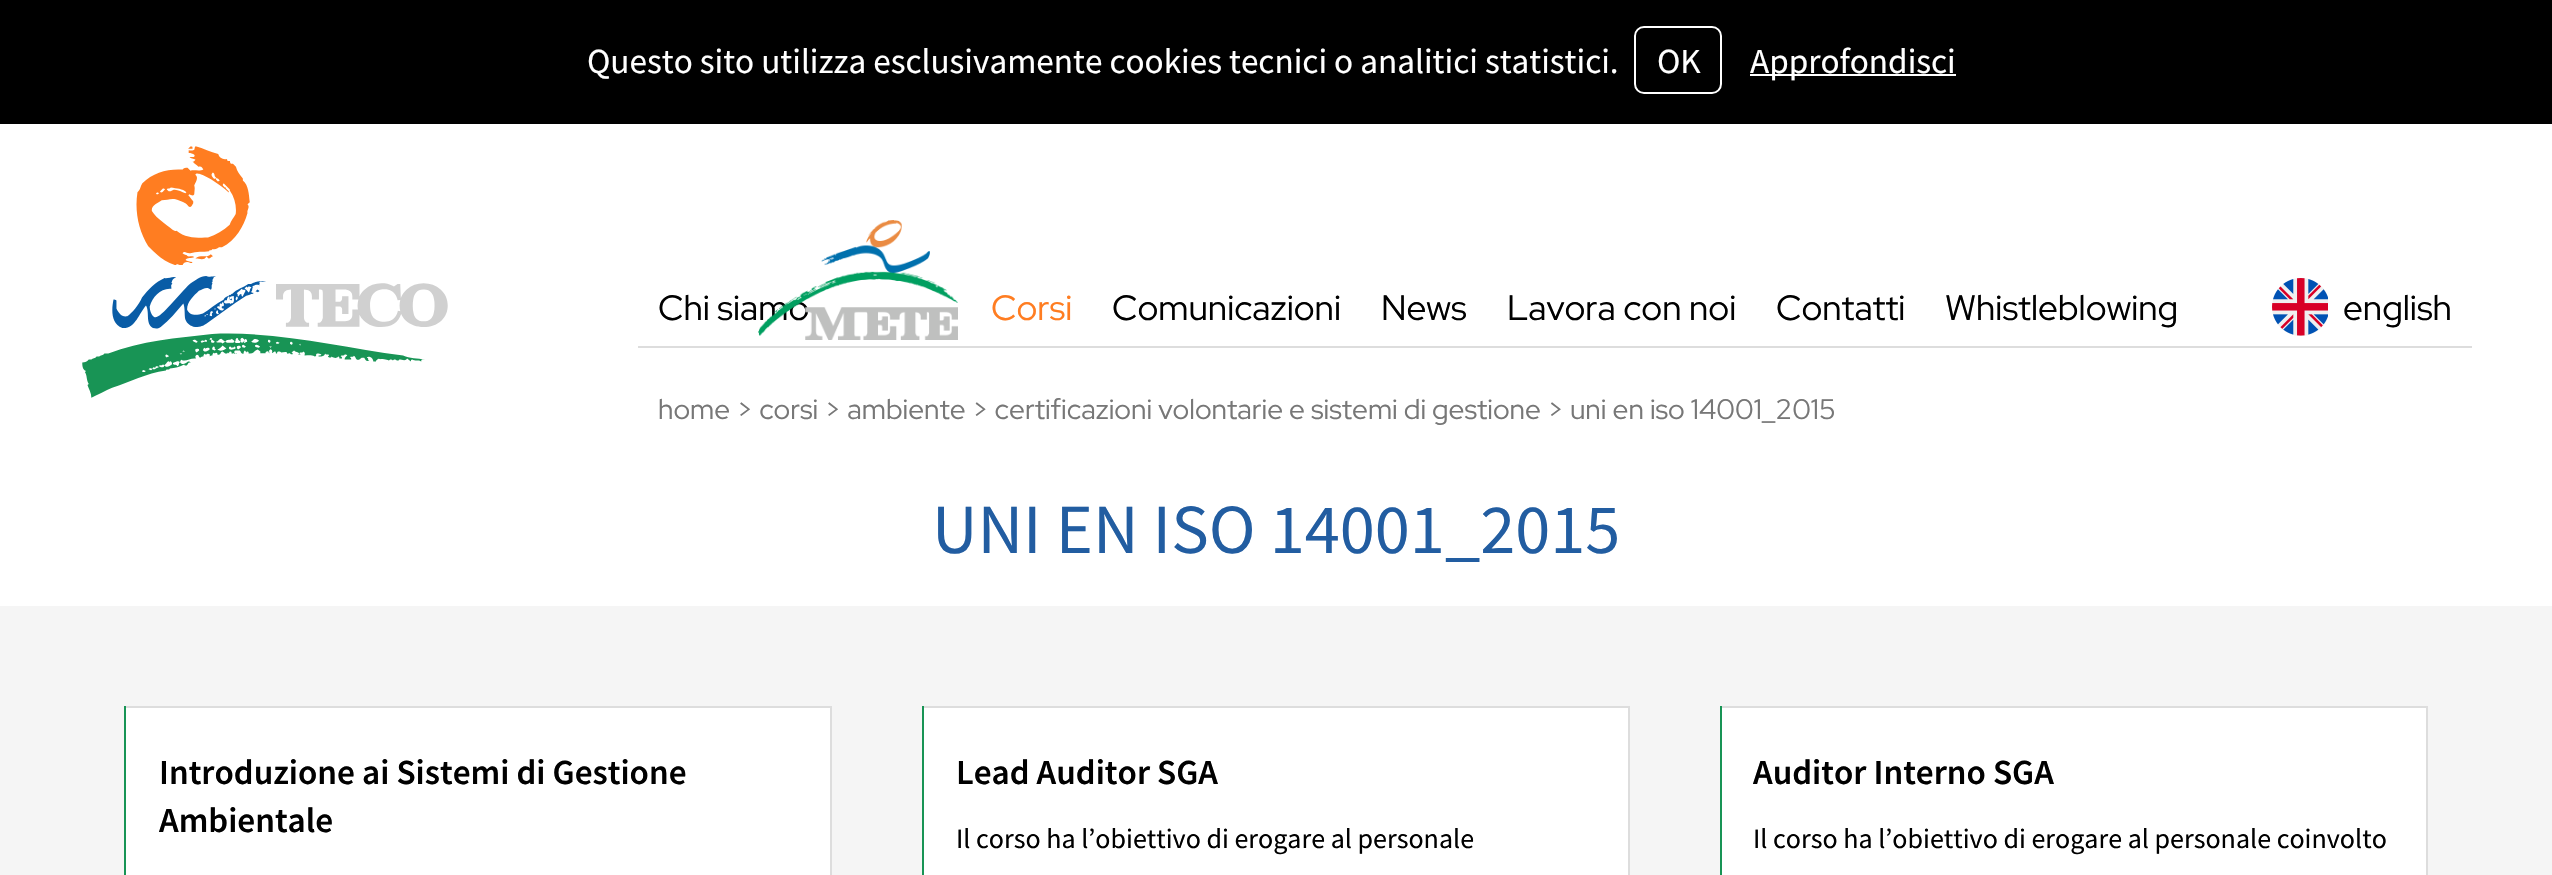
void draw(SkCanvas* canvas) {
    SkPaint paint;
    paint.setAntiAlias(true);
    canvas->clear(0xFFFFFFFF);
    paint.setColor(0xFF000000);
    canvas->drawRect(SkRect::MakeXYWH(0, 0, 2552, 124), paint);
    SkFont font1(fontMgr->matchFamilyStyle("Source Sans Pro", SkFontStyle::Normal()), 35.2f);
    font1.setSubpixel(true);
    paint.setColor(0xFFFFFFFF);
    canvas->drawString("Questo sito utilizza esclusivamente cookies tecnici o analitici statistici.", 587, 73, font1, paint);
    paint.setStyle(SkPaint::kStroke_Style);
    paint.setStrokeWidth(2);
    canvas->drawRoundRect(SkRect::MakeXYWH(1635, 27, 86, 66), 9, 9, paint);
    paint.setStyle(SkPaint::kFill_Style);
    canvas->drawString("OK", 1657, 73, font1, paint);
    canvas->drawRect(SkRect::MakeXYWH(1750, 74, 206, 2), paint);
    canvas->drawString("Approfondisci", 1750, 73, font1, paint);
    canvas->drawImageRect(SkImages::DeferredFromEncodedData(SkData::MakeFromFileName("img1.png")), SkRect::MakeXYWH(82, 146, 366, 252), SkSamplingOptions());
    paint.setColor(0xFFDDDDDD);
    canvas->drawRect(SkRect::MakeXYWH(638, 346, 1834, 2), paint);
    SkFont font2(fontMgr->matchFamilyStyle("Red Hat Display", SkFontStyle::Normal()), 35.2f);
    font2.setSubpixel(true);
    paint.setColor(0xFF000000);
    canvas->drawString("Chi siamo", 658, 320, font2, paint);
    canvas->drawImageRect(SkImages::DeferredFromEncodedData(SkData::MakeFromFileName("img2.png")), SkRect::MakeXYWH(758, 220, 200, 120), SkSamplingOptions());
    paint.setColor(0xFFFF7D21);
    canvas->drawString("Corsi", 991, 320, font2, paint);
    paint.setColor(0xFF000000);
    canvas->drawString("Comunicazioni", 1112, 320, font2, paint);
    canvas->drawString("News", 1381, 320, font2, paint);
    canvas->drawString("Lavora con noi", 1507, 320, font2, paint);
    canvas->drawString("Contatti", 1776, 320, font2, paint);
    canvas->drawString("Whistleblowing", 1945, 320, font2, paint);
    canvas->drawImageRect(SkImages::DeferredFromEncodedData(SkData::MakeFromFileName("img3.png")), SkRect::MakeXYWH(2272, 278, 56, 58), SkSamplingOptions());
    canvas->drawString("english", 2343, 320, font2, paint);
    SkFont font3(fontMgr->matchFamilyStyle("Red Hat Display", SkFontStyle::Normal()), 28.15f);
    font3.setSubpixel(true);
    paint.setColor(0xFF777777);
    canvas->drawString("home > corsi > ambiente > certificazioni volontarie e sistemi di gestione > uni en iso 14001_2015", 658, 419, font3, paint);
    SkFont font4(fontMgr->matchFamilyStyle("Source Sans Pro", SkFontStyle::Normal()), 70.5f);
    font4.setSubpixel(true);
    paint.setColor(0xFF225DA1);
    canvas->drawString("UNI EN ISO 14001_2015", 932, 553, font4, paint);
    paint.setColor(0xFFF5F5F5);
    canvas->drawRect(SkRect::MakeXYWH(0, 606, 2552, 269), paint);
    paint.setColor(0xFFFFFFFF);
    canvas->drawRect(SkRect::MakeXYWH(126, 708, 704, 167), paint);
    paint.setColor(0xFFDDDDDD);
    canvas->drawRect(SkRect::MakeXYWH(124, 706, 708, 2), paint);
    canvas->drawRect(SkRect::MakeXYWH(830, 706, 2, 169), paint);
    paint.setColor(0xFF189455);
    canvas->drawRect(SkRect::MakeXYWH(124, 706, 2, 169), paint);
    SkFont font5(fontMgr->matchFamilyStyle("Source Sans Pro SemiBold", SkFontStyle(600, SkFontStyle::kNormal_Width, SkFontStyle::kUpright_Slant)), 35.2f);
    font5.setSubpixel(true);
    paint.setColor(0xFF000000);
    canvas->drawString("Introduzione ai Sistemi di Gestione", 159, 784, font5, paint);
    canvas->drawString("Ambientale", 159, 832, font5, paint);
    paint.setColor(0xFFFFFFFF);
    canvas->drawRect(SkRect::MakeXYWH(924, 708, 704, 167), paint);
    paint.setColor(0xFFDDDDDD);
    canvas->drawRect(SkRect::MakeXYWH(922, 706, 708, 2), paint);
    canvas->drawRect(SkRect::MakeXYWH(1628, 706, 2, 169), paint);
    paint.setColor(0xFF189455);
    canvas->drawRect(SkRect::MakeXYWH(922, 706, 2, 169), paint);
    paint.setColor(0xFF000000);
    canvas->drawString("Lead Auditor SGA", 956, 784, font5, paint);
    SkFont font6(fontMgr->matchFamilyStyle("Source Sans Pro", SkFontStyle::Normal()), 28);
    font6.setSubpixel(true);
    canvas->drawString("Il corso ha l’obiettivo di erogare al personale", 956, 848, font6, paint);
    paint.setColor(0xFFFFFFFF);
    canvas->drawRect(SkRect::MakeXYWH(1722, 708, 704, 167), paint);
    paint.setColor(0xFFDDDDDD);
    canvas->drawRect(SkRect::MakeXYWH(1720, 706, 708, 2), paint);
    canvas->drawRect(SkRect::MakeXYWH(2426, 706, 2, 169), paint);
    paint.setColor(0xFF189455);
    canvas->drawRect(SkRect::MakeXYWH(1720, 706, 2, 169), paint);
    paint.setColor(0xFF000000);
    canvas->drawString("Auditor Interno SGA", 1753, 784, font5, paint);
    canvas->drawString("Il corso ha l’obiettivo di erogare al personale coinvolto", 1753, 848, font6, paint);
}
